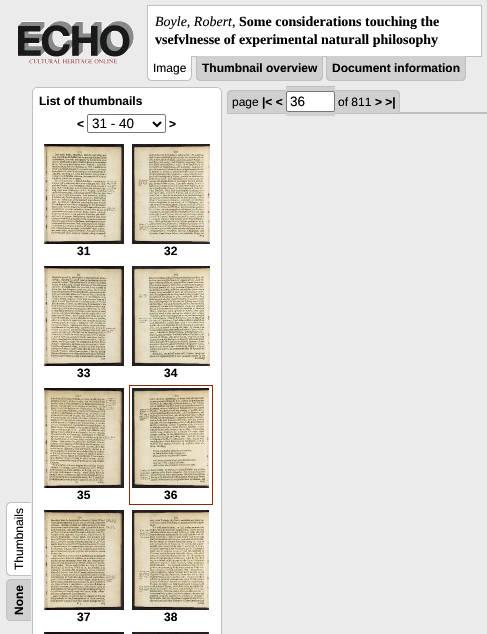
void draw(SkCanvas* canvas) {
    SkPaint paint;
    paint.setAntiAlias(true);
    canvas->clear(0xFFEBEBEB);
    canvas->drawImageRect(SkImages::DeferredFromEncodedData(SkData::MakeFromFileName("img1.png")), SkRect::MakeXYWH(18, 21, 116, 43), SkSamplingOptions());
    paint.setColor(0xFFFFFFFF);
    canvas->drawRect(SkRect::MakeXYWH(147.5f, 5.5f, 334, 51), paint);
    paint.setStyle(SkPaint::kStroke_Style);
    paint.setStrokeWidth(1);
    paint.setColor(0xFFC0C0C0);
    canvas->drawRect(SkRect::MakeXYWH(147.5f, 5.5f, 334, 51), paint);
    SkFont font1(fontMgr->matchFamilyStyle("Liberation Serif", SkFontStyle::Italic()), 14);
    font1.setSubpixel(true);
    paint.setStyle(SkPaint::kFill_Style);
    paint.setColor(0xFF000000);
    canvas->drawString("Boyle, Robert", 155, 26, font1, paint);
    SkFont font2(fontMgr->matchFamilyStyle("Liberation Serif", SkFontStyle::Normal()), 14);
    font2.setSubpixel(true);
    canvas->drawString(",", 232, 26, font2, paint);
    SkFont font3(fontMgr->matchFamilyStyle("Liberation Serif", SkFontStyle::Bold()), 14);
    font3.setSubpixel(true);
    canvas->drawString("Some considerations touching the", 239, 26, font3, paint);
    canvas->drawString("vsefvlnesse of experimental naturall philosophy", 155, 44, font3, paint);
    paint.setColor(0xFFFFFFFF);
    canvas->drawPath(SkPathBuilder().moveTo(147, 56).lineTo(192, 56).lineTo(192, 76).cubicTo(192, 79, 190, 81, 187, 81).lineTo(152, 81).cubicTo(149, 81, 147, 79, 147, 76).close().detach(), paint);
    paint.setColor(0xFFC0C0C0);
    canvas->drawPath(SkPathBuilder(SkPathFillType::kEvenOdd).moveTo(147, 56).lineTo(192, 56).lineTo(192, 76).cubicTo(192, 79, 190, 81, 187, 81).lineTo(152, 81).cubicTo(149, 81, 147, 79, 147, 76).close().moveTo(148, 56).lineTo(191, 56).lineTo(191, 76).cubicTo(191, 78, 189, 80, 187, 80).lineTo(152, 80).cubicTo(150, 80, 148, 78, 148, 76).close().detach(), paint);
    SkFont font4(fontMgr->matchFamilyStyle("Liberation Sans", SkFontStyle::Normal()), 12);
    font4.setSubpixel(true);
    paint.setColor(0xFF000000);
    canvas->drawString("Image", 153, 72, font4, paint);
    paint.setColor(0xFFD0D0D0);
    canvas->drawPath(SkPathBuilder().moveTo(196, 56).lineTo(323, 56).lineTo(323, 76).cubicTo(323, 79, 321, 81, 318, 81).lineTo(201, 81).cubicTo(198, 81, 196, 79, 196, 76).close().detach(), paint);
    paint.setColor(0xFFC0C0C0);
    canvas->drawPath(SkPathBuilder(SkPathFillType::kEvenOdd).moveTo(196, 56).lineTo(323, 56).lineTo(323, 76).cubicTo(323, 79, 321, 81, 318, 81).lineTo(201, 81).cubicTo(198, 81, 196, 79, 196, 76).close().moveTo(197, 56).lineTo(322, 56).lineTo(322, 76).cubicTo(322, 78, 320, 80, 318, 80).lineTo(201, 80).cubicTo(199, 80, 197, 78, 197, 76).close().detach(), paint);
    SkFont font5(fontMgr->matchFamilyStyle("Liberation Sans", SkFontStyle::Bold()), 12);
    font5.setSubpixel(true);
    paint.setColor(0xFF000000);
    canvas->drawString("Thumbnail overview", 202, 72, font5, paint);
    paint.setColor(0xFFD0D0D0);
    canvas->drawPath(SkPathBuilder().moveTo(326, 56).lineTo(466, 56).lineTo(466, 76).cubicTo(466, 79, 464, 81, 461, 81).lineTo(331, 81).cubicTo(328, 81, 326, 79, 326, 76).close().detach(), paint);
    paint.setColor(0xFFC0C0C0);
    canvas->drawPath(SkPathBuilder(SkPathFillType::kEvenOdd).moveTo(326, 56).lineTo(466, 56).lineTo(466, 76).cubicTo(466, 79, 464, 81, 461, 81).lineTo(331, 81).cubicTo(328, 81, 326, 79, 326, 76).close().moveTo(327, 56).lineTo(465, 56).lineTo(465, 76).cubicTo(465, 78, 463, 80, 461, 80).lineTo(331, 80).cubicTo(329, 80, 327, 78, 327, 76).close().detach(), paint);
    paint.setColor(0xFF000000);
    canvas->drawString("Document information", 332, 72, font5, paint);
    paint.setColor(0xFFFFFFFF);
    canvas->drawPath(SkPathBuilder().moveTo(6, 571).lineTo(6, 507).cubicTo(6, 504, 8, 502, 11, 502).lineTo(31, 502).lineTo(31, 576).lineTo(11, 576).cubicTo(8, 576, 6, 574, 6, 571).close().detach(), paint);
    paint.setColor(0xFFC0C0C0);
    canvas->drawPath(SkPathBuilder(SkPathFillType::kEvenOdd).moveTo(6, 571).lineTo(6, 507).cubicTo(6, 504, 8, 502, 11, 502).lineTo(31, 502).lineTo(31, 576).lineTo(11, 576).cubicTo(8, 576, 6, 574, 6, 571).close().moveTo(7, 571).lineTo(7, 507).cubicTo(7, 505, 9, 503, 11, 503).lineTo(31, 503).lineTo(31, 575).lineTo(11, 575).cubicTo(9, 575, 7, 573, 7, 571).close().detach(), paint);
    paint.setColor(0xFF000000);
    canvas->save();
    canvas->rotate(-90, 23, 570);
    canvas->drawString("Thumbnails", 23, 570, font4, paint);
    canvas->restore();
    paint.setColor(0xFFD0D0D0);
    canvas->drawPath(SkPathBuilder().moveTo(6, 616).lineTo(6, 584).cubicTo(6, 582, 8, 579, 11, 579).lineTo(31, 579).lineTo(31, 621).lineTo(11, 621).cubicTo(8, 621, 6, 619, 6, 616).close().detach(), paint);
    paint.setColor(0xFFC0C0C0);
    canvas->drawPath(SkPathBuilder(SkPathFillType::kEvenOdd).moveTo(6, 616).lineTo(6, 584).cubicTo(6, 582, 8, 579, 11, 579).lineTo(31, 579).lineTo(31, 621).lineTo(11, 621).cubicTo(8, 621, 6, 619, 6, 616).close().moveTo(7, 616).lineTo(7, 584).cubicTo(7, 582, 9, 580, 11, 580).lineTo(31, 580).lineTo(31, 620).lineTo(11, 620).cubicTo(9, 620, 7, 619, 7, 616).close().detach(), paint);
    paint.setColor(0xFF000000);
    canvas->save();
    canvas->rotate(-90, 23, 615);
    canvas->drawString("None", 23, 615, font5, paint);
    canvas->restore();
    paint.setColor(0xFFFFFFFF);
    canvas->drawRoundRect(SkRect::MakeXYWH(32.5f, 87.5f, 189, 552), 4.5f, 4.5f, paint);
    paint.setStyle(SkPaint::kStroke_Style);
    paint.setColor(0xFFC0C0C0);
    canvas->drawRoundRect(SkRect::MakeXYWH(32.5f, 87.5f, 189, 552), 4.5f, 4.5f, paint);
    paint.setStyle(SkPaint::kFill_Style);
    paint.setColor(0xFF000000);
    canvas->drawString("List of thumbnails", 39, 105, font5, paint);
    canvas->drawString("<", 77, 128, font5, paint);
    paint.setStyle(SkPaint::kStroke_Style);
    paint.setColor(0xFF767676);
    canvas->drawRoundRect(SkRect::MakeXYWH(87.5f, 114.5f, 78, 18), 1.5f, 1.5f, paint);
    paint.setStrokeWidth(2);
    paint.setColor(0xFF000000);
    canvas->drawPath(SkPathBuilder().moveTo(153, 122).lineTo(157, 126).lineTo(161, 122).detach(), paint);
    SkFont font6(fontMgr->matchFamilyStyle("Liberation Sans", SkFontStyle::Normal()), 13.5f);
    font6.setSubpixel(true);
    paint.setStyle(SkPaint::kFill_Style);
    canvas->drawString("31 - 40", 92, 128, font6, paint);
    canvas->drawString(">", 169, 128, font5, paint);
    canvas->drawImageRect(SkImages::DeferredFromEncodedData(SkData::MakeFromFileName("img2.png")), SkRect::MakeXYWH(44, 144, 80, 100), SkSamplingOptions());
    canvas->drawString("31", 77, 255, font5, paint);
    canvas->drawImageRect(SkImages::DeferredFromEncodedData(SkData::MakeFromFileName("img3.png")), SkRect::MakeXYWH(132, 144, 78, 100), SkSamplingOptions());
    canvas->drawString("32", 164, 255, font5, paint);
    canvas->drawImageRect(SkImages::DeferredFromEncodedData(SkData::MakeFromFileName("img4.png")), SkRect::MakeXYWH(44, 266, 80, 100), SkSamplingOptions());
    canvas->drawString("33", 77, 377, font5, paint);
    canvas->drawImageRect(SkImages::DeferredFromEncodedData(SkData::MakeFromFileName("img5.png")), SkRect::MakeXYWH(132, 266, 78, 100), SkSamplingOptions());
    canvas->drawString("34", 164, 377, font5, paint);
    canvas->drawImageRect(SkImages::DeferredFromEncodedData(SkData::MakeFromFileName("img6.png")), SkRect::MakeXYWH(44, 388, 80, 100), SkSamplingOptions());
    canvas->drawString("35", 77, 499, font5, paint);
    paint.setStyle(SkPaint::kStroke_Style);
    paint.setStrokeWidth(1);
    paint.setColor(0xFF892B06);
    canvas->drawRect(SkRect::MakeXYWH(129.5f, 385.5f, 83, 119), paint);
    canvas->drawImageRect(SkImages::DeferredFromEncodedData(SkData::MakeFromFileName("img7.png")), SkRect::MakeXYWH(132, 388, 77, 100), SkSamplingOptions());
    paint.setStyle(SkPaint::kFill_Style);
    paint.setColor(0xFF000000);
    canvas->drawString("36", 164, 499, font5, paint);
    canvas->drawImageRect(SkImages::DeferredFromEncodedData(SkData::MakeFromFileName("img8.png")), SkRect::MakeXYWH(44, 510, 80, 100), SkSamplingOptions());
    canvas->drawString("37", 77, 621, font5, paint);
    canvas->drawImageRect(SkImages::DeferredFromEncodedData(SkData::MakeFromFileName("img9.png")), SkRect::MakeXYWH(132, 510, 77, 100), SkSamplingOptions());
    canvas->drawString("38", 164, 621, font5, paint);
    canvas->drawImageRect(SkImages::DeferredFromEncodedData(SkData::MakeFromFileName("img10.png")), SkRect::MakeXYWH(44, 632, 80, 2), SkSamplingOptions());
    canvas->drawImageRect(SkImages::DeferredFromEncodedData(SkData::MakeFromFileName("img11.png")), SkRect::MakeXYWH(132, 632, 77, 2), SkSamplingOptions());
    paint.setColor(0xFFC0C0C0);
    canvas->drawRect(SkRect::MakeXYWH(227, 112, 260, 2), paint);
    paint.setColor(0xFFD0D0D0);
    canvas->drawPath(SkPathBuilder().moveTo(232, 90).lineTo(262, 90).lineTo(262, 113).lineTo(227, 113).lineTo(227, 95).cubicTo(227, 92, 229, 90, 232, 90).close().detach(), paint);
    paint.setColor(0xFFC0C0C0);
    canvas->drawPath(SkPathBuilder(SkPathFillType::kEvenOdd).moveTo(232, 90).lineTo(262, 90).lineTo(262, 113).lineTo(227, 113).lineTo(227, 95).cubicTo(227, 92, 229, 90, 232, 90).close().moveTo(232, 91).lineTo(262, 91).lineTo(262, 113).lineTo(228, 113).lineTo(228, 95).cubicTo(228, 93, 230, 91, 232, 91).close().detach(), paint);
    paint.setColor(0xFFD0D0D0);
    canvas->drawRect(SkRect::MakeXYWH(262, 91, 10, 22), paint);
    paint.setColor(0xFFC0C0C0);
    canvas->drawRect(SkRect::MakeXYWH(262, 90, 10, 1), paint);
    paint.setColor(0xFFD0D0D0);
    canvas->drawRect(SkRect::MakeXYWH(272, 90, 14, 23), paint);
    paint.setColor(0xFFC0C0C0);
    canvas->drawRect(SkRect::MakeXYWH(272, 90, 14, 1), paint);
    paint.setColor(0xFFD0D0D0);
    canvas->drawRect(SkRect::MakeXYWH(286, 87, 49, 29), paint);
    paint.setColor(0xFFC0C0C0);
    canvas->drawRect(SkRect::MakeXYWH(286, 86, 49, 1), paint);
    paint.setColor(0xFFD0D0D0);
    canvas->drawRect(SkRect::MakeXYWH(335, 90, 3, 23), paint);
    paint.setColor(0xFFC0C0C0);
    canvas->drawRect(SkRect::MakeXYWH(335, 90, 40, 1), paint);
    paint.setColor(0xFFD0D0D0);
    canvas->drawRect(SkRect::MakeXYWH(338, 91, 37, 22), paint);
    canvas->drawRect(SkRect::MakeXYWH(375, 90, 10, 23), paint);
    paint.setColor(0xFFC0C0C0);
    canvas->drawRect(SkRect::MakeXYWH(375, 90, 10, 1), paint);
    paint.setColor(0xFFD0D0D0);
    canvas->drawPath(SkPathBuilder().moveTo(385, 90).lineTo(395, 90).cubicTo(398, 90, 400, 92, 400, 95).lineTo(400, 113).lineTo(385, 113).close().detach(), paint);
    paint.setColor(0xFFC0C0C0);
    canvas->drawPath(SkPathBuilder(SkPathFillType::kEvenOdd).moveTo(385, 90).lineTo(395, 90).cubicTo(398, 90, 400, 92, 400, 95).lineTo(400, 113).lineTo(385, 113).close().moveTo(385, 91).lineTo(395, 91).cubicTo(397, 91, 399, 93, 399, 95).lineTo(399, 113).lineTo(385, 113).close().detach(), paint);
    paint.setColor(0xFF000000);
    canvas->drawString("page", 232, 106, font4, paint);
    canvas->drawString("|< <", 262, 106, font5, paint);
    paint.setColor(0xFFFFFFFF);
    canvas->drawRoundRect(SkRect::MakeXYWH(286.5f, 91.5f, 48, 20), 1.5f, 1.5f, paint);
    paint.setStyle(SkPaint::kStroke_Style);
    paint.setColor(0xFF767676);
    canvas->drawRoundRect(SkRect::MakeXYWH(286.5f, 91.5f, 48, 20), 1.5f, 1.5f, paint);
    paint.setStyle(SkPaint::kFill_Style);
    paint.setColor(0xFF000000);
    canvas->drawString("36", 290, 106, font6, paint);
    canvas->drawString("of 811", 338, 106, font4, paint);
    canvas->drawString("> >|", 375, 106, font5, paint);
}
